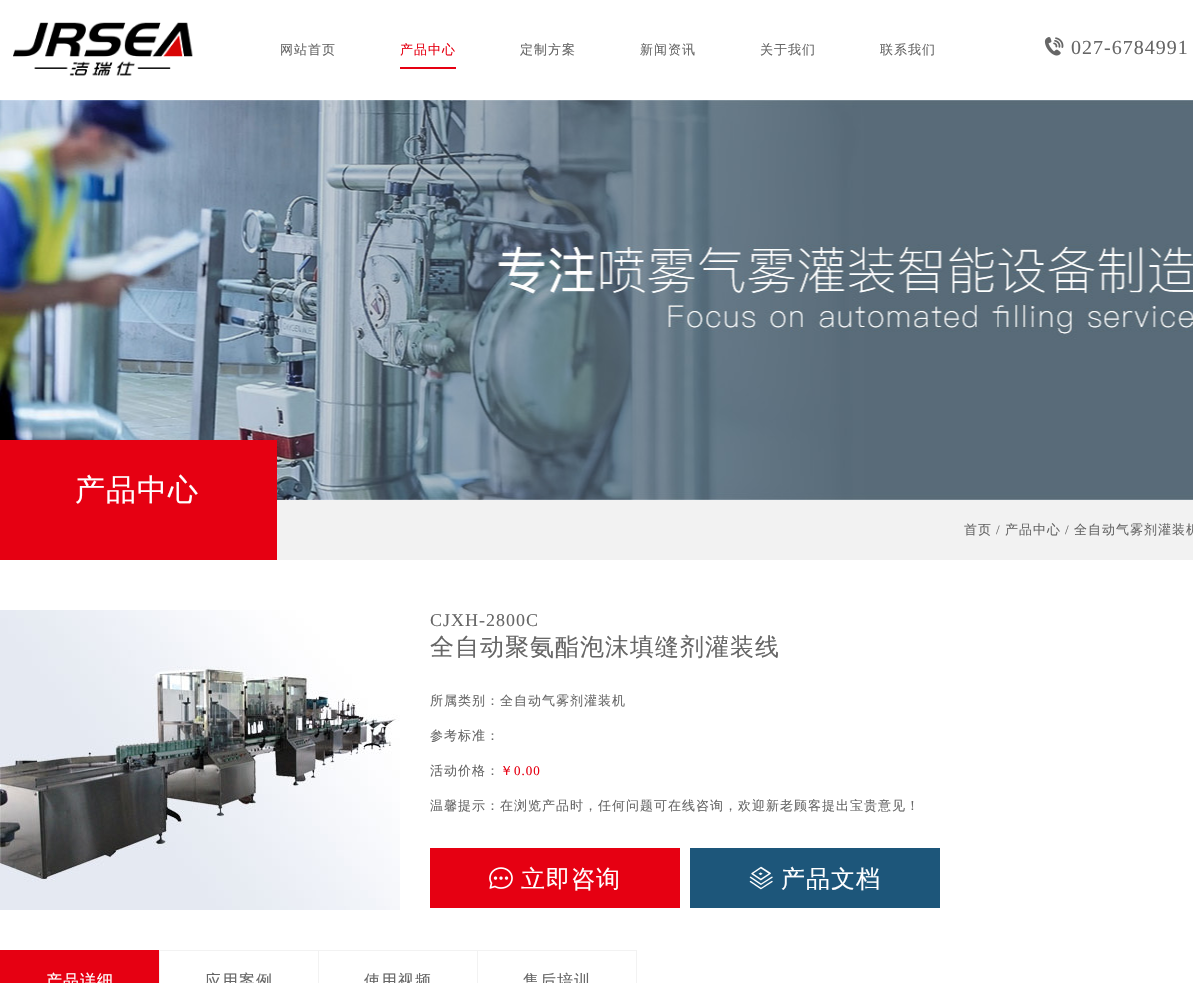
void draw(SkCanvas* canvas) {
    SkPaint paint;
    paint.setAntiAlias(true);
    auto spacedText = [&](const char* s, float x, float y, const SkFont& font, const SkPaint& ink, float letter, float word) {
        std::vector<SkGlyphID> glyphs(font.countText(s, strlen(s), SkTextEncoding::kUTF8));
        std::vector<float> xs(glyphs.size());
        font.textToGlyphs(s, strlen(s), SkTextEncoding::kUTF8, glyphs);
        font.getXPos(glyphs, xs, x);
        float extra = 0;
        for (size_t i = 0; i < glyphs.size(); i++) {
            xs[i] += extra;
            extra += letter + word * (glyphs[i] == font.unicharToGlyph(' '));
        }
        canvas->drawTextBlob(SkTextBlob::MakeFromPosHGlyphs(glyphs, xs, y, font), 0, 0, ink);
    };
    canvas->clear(0xFFFFFFFF);
    canvas->drawImageRect(SkImages::DeferredFromEncodedData(SkData::MakeFromFileName("img1.png")), SkRect::MakeXYWH(13, 22, 180, 54), SkSamplingOptions());
    SkFont font1(fontMgr->matchFamilyStyle("WenQuanYi Zen Hei", SkFontStyle(500, SkFontStyle::kNormal_Width, SkFontStyle::kUpright_Slant)), 13);
    font1.setSubpixel(true);
    paint.setColor(0xFF666666);
    spacedText("网站首页", 280, 54, font1, paint, 1, 0);
    paint.setColor(0xFFE60012);
    spacedText("产品中心", 400, 54, font1, paint, 1, 0);
    canvas->drawRect(SkRect::MakeXYWH(400, 67, 56, 2), paint);
    paint.setColor(0xFF666666);
    spacedText("定制方案", 520, 54, font1, paint, 1, 0);
    spacedText("新闻资讯", 640, 54, font1, paint, 1, 0);
    spacedText("关于我们", 760, 54, font1, paint, 1, 0);
    spacedText("联系我们", 880, 54, font1, paint, 1, 0);
    canvas->drawImageRect(SkImages::DeferredFromEncodedData(SkData::MakeFromFileName("img2.png")), SkRect::MakeXYWH(1044, 37, 20, 19), SkSamplingOptions());
    SkFont font2(fontMgr->matchFamilyStyle("Liberation Serif", SkFontStyle::Normal()), 20);
    font2.setSubpixel(true);
    spacedText("027-6784991", 1071, 54, font2, paint, 1, 0);
    canvas->drawImageRect(SkImages::DeferredFromEncodedData(SkData::MakeFromFileName("img3.png")), SkRect::MakeXYWH(0, 100, 1193, 400), SkSamplingOptions());
    paint.setColor(0xFFE60012);
    canvas->drawRect(SkRect::MakeXYWH(0, 440, 277, 120), paint);
    SkFont font3(fontMgr->matchFamilyStyle("WenQuanYi Zen Hei", SkFontStyle(500, SkFontStyle::kNormal_Width, SkFontStyle::kUpright_Slant)), 30);
    font3.setSubpixel(true);
    paint.setColor(0xFFFFFFFF);
    spacedText("产品中心", 75, 500, font3, paint, 1, 0);
    paint.setColor(0xFFF2F2F2);
    canvas->drawRect(SkRect::MakeXYWH(277, 500, 916, 60), paint);
    paint.setColor(0xFF666666);
    spacedText("首页", 964, 534, font1, paint, 1, 0);
    SkFont font4(fontMgr->matchFamilyStyle("Liberation Serif", SkFontStyle::Normal()), 13);
    font4.setSubpixel(true);
    spacedText("/", 996, 534, font4, paint, 1, 0);
    spacedText("产品中心", 1005, 534, font1, paint, 1, 0);
    spacedText("/", 1065, 534, font4, paint, 1, 0);
    spacedText("全自动气雾剂灌装机", 1074, 534, font1, paint, 1, 0);
    canvas->drawImageRect(SkImages::DeferredFromEncodedData(SkData::MakeFromFileName("img4.png")), SkRect::MakeXYWH(0, 610, 400, 300), SkSamplingOptions());
    SkFont font5(fontMgr->matchFamilyStyle("Liberation Serif", SkFontStyle::Normal()), 18);
    font5.setSubpixel(true);
    spacedText("CJXH-2800C", 430, 626, font5, paint, 1, 0);
    SkFont font6(fontMgr->matchFamilyStyle("WenQuanYi Zen Hei", SkFontStyle(500, SkFontStyle::kNormal_Width, SkFontStyle::kUpright_Slant)), 24);
    font6.setSubpixel(true);
    spacedText("全自动聚氨酯泡沫填缝剂灌装线", 430, 655, font6, paint, 1, 0);
    spacedText("所属类别：全自动气雾剂灌装机", 430, 705, font1, paint, 1, 0);
    spacedText("参考标准：", 430, 740, font1, paint, 1, 0);
    spacedText("活动价格：", 430, 775, font1, paint, 1, 0);
    paint.setColor(0xFFE60012);
    spacedText("￥", 500, 775, font1, paint, 1, 0);
    spacedText("0.00", 514, 775, font4, paint, 1, 0);
    paint.setColor(0xFF666666);
    spacedText("温馨提示：在浏览产品时，任何问题可在线咨询，欢迎新老顾客提出宝贵意见！", 430, 810, font1, paint, 1, 0);
    paint.setColor(0xFFE60012);
    canvas->drawRect(SkRect::MakeXYWH(430, 848, 250, 60), paint);
    canvas->drawImageRect(SkImages::DeferredFromEncodedData(SkData::MakeFromFileName("img5.png")), SkRect::MakeXYWH(489, 867, 24, 22), SkSamplingOptions());
    paint.setColor(0xFFFFFFFF);
    spacedText("立即咨询", 521, 887, font6, paint, 1, 0);
    paint.setColor(0xFF1D567A);
    canvas->drawRect(SkRect::MakeXYWH(690, 848, 250, 60), paint);
    canvas->drawImageRect(SkImages::DeferredFromEncodedData(SkData::MakeFromFileName("img6.png")), SkRect::MakeXYWH(749, 866, 24, 24), SkSamplingOptions());
    paint.setColor(0xFFFFFFFF);
    spacedText("产品文档", 781, 887, font6, paint, 1, 0);
    paint.setColor(0xFFE60012);
    canvas->drawRect(SkRect::MakeXYWH(0, 950, 159, 33), paint);
    SkFont font7(fontMgr->matchFamilyStyle("WenQuanYi Zen Hei", SkFontStyle(500, SkFontStyle::kNormal_Width, SkFontStyle::kUpright_Slant)), 16);
    font7.setSubpixel(true);
    paint.setColor(0xFFFFFFFF);
    spacedText("产品详细", 46, 986, font7, paint, 1, 0);
    paint.setStyle(SkPaint::kStroke_Style);
    paint.setStrokeWidth(1);
    paint.setColor(0xFFF2F2F2);
    canvas->drawRect(SkRect::MakeXYWH(159.5f, 950.5f, 159, 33), paint);
    paint.setStyle(SkPaint::kFill_Style);
    paint.setColor(0xFF666666);
    spacedText("应用案例", 205, 986, font7, paint, 1, 0);
    paint.setStyle(SkPaint::kStroke_Style);
    paint.setColor(0xFFF2F2F2);
    canvas->drawRect(SkRect::MakeXYWH(318.5f, 950.5f, 159, 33), paint);
    paint.setStyle(SkPaint::kFill_Style);
    paint.setColor(0xFF666666);
    spacedText("使用视频", 364, 986, font7, paint, 1, 0);
    paint.setStyle(SkPaint::kStroke_Style);
    paint.setColor(0xFFF2F2F2);
    canvas->drawRect(SkRect::MakeXYWH(477.5f, 950.5f, 159, 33), paint);
    paint.setStyle(SkPaint::kFill_Style);
    paint.setColor(0xFF666666);
    spacedText("售后培训", 523, 986, font7, paint, 1, 0);
}
